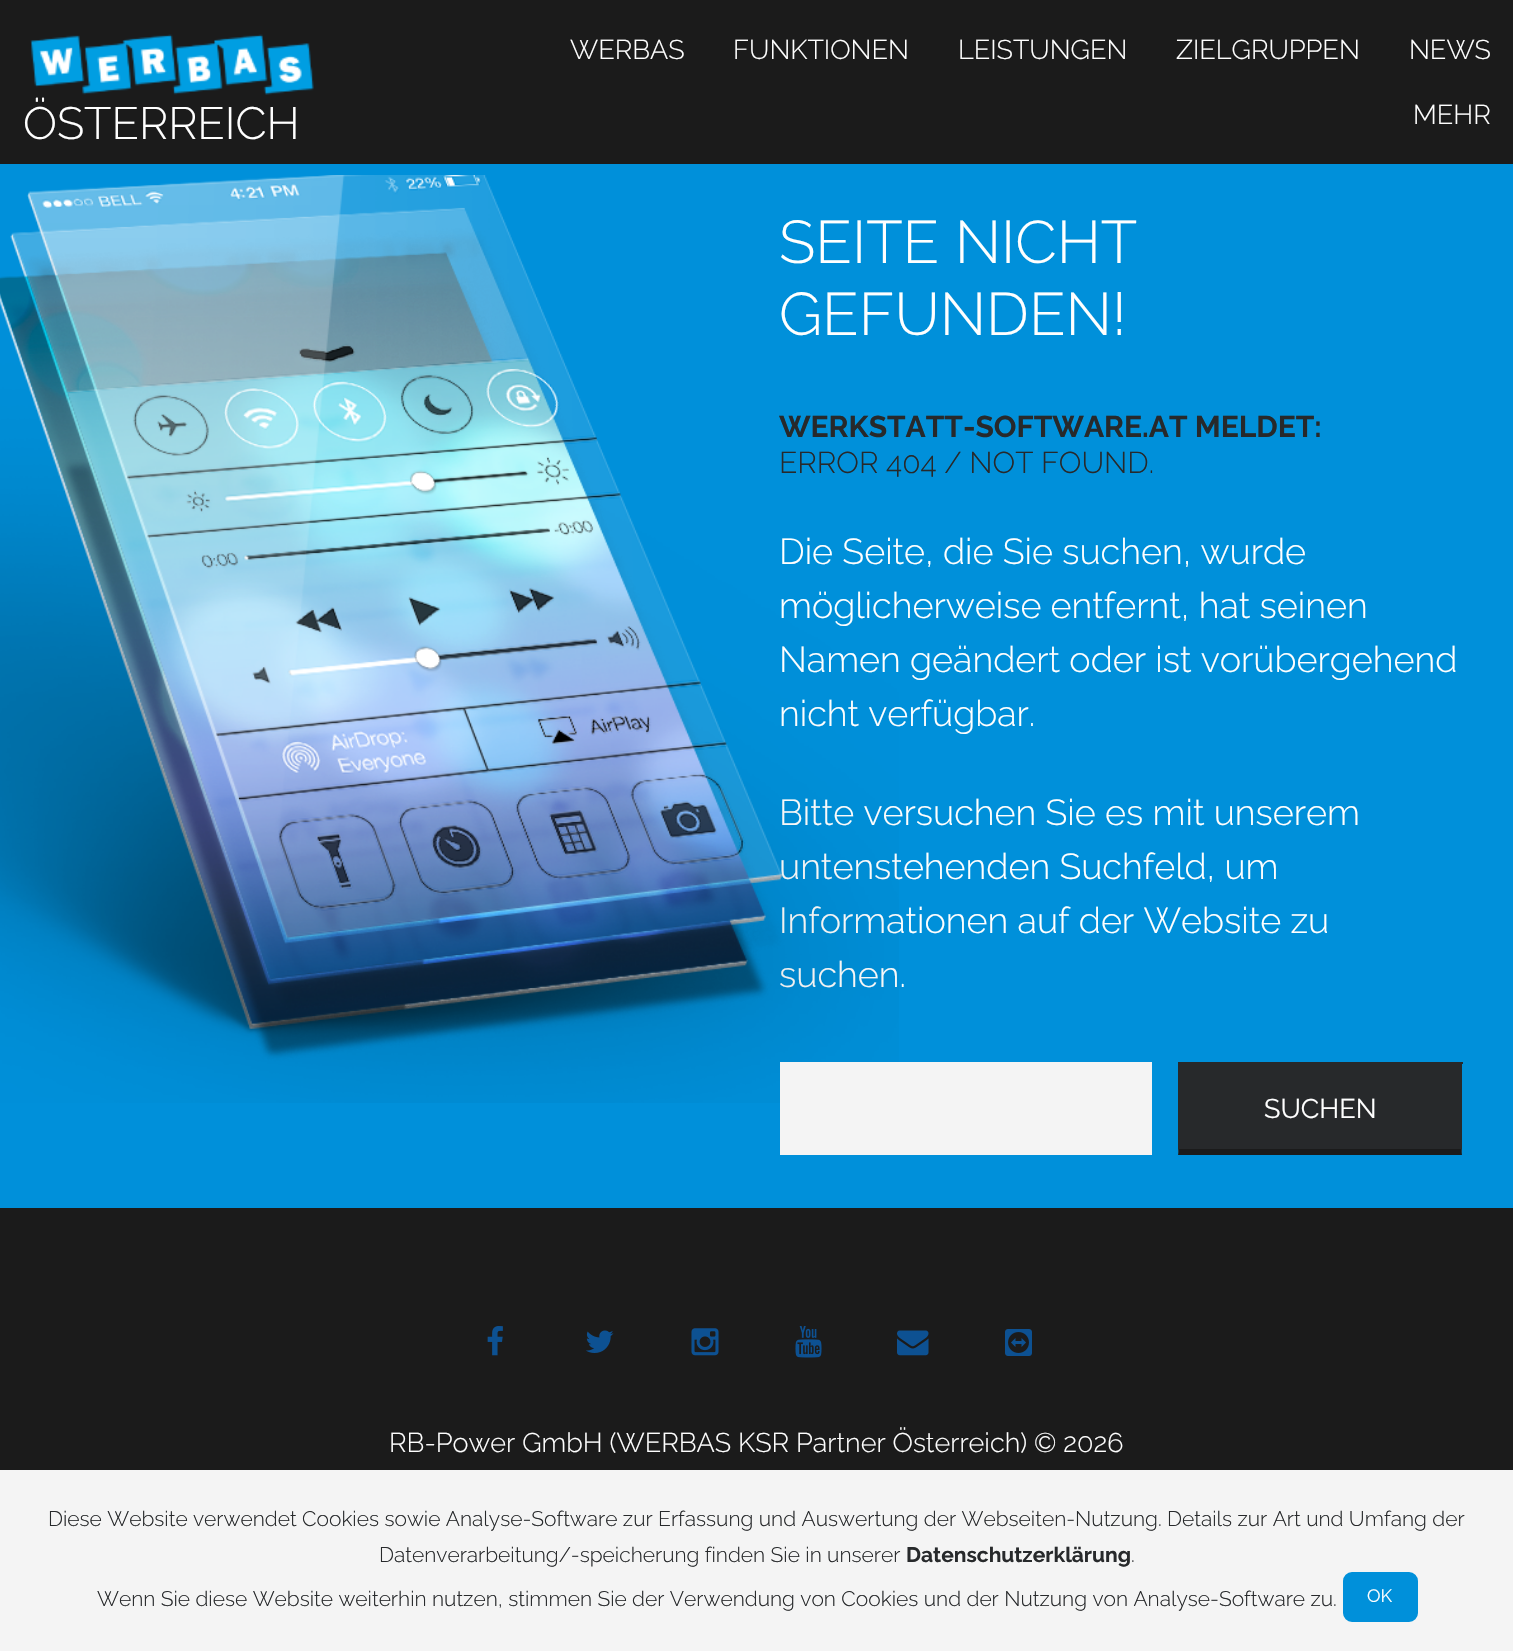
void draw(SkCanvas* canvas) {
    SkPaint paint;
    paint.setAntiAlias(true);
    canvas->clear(0xFF1B1B1B);
    canvas->drawImageRect(SkImages::DeferredFromEncodedData(SkData::MakeFromFileName("img1.png")), SkRect::MakeXYWH(30, 34, 284, 61), SkSamplingOptions());
    SkFont font1(fontMgr->matchFamilyStyle("Raleway", SkFontStyle(300, SkFontStyle::kNormal_Width, SkFontStyle::kUpright_Slant)), 45);
    font1.setSubpixel(true);
    paint.setColor(0xFFFFFFFF);
    canvas->drawString("ÖSTERREICH", 23, 139, font1, paint);
    SkFont font2(fontMgr->matchFamilyStyle("Raleway", SkFontStyle(300, SkFontStyle::kNormal_Width, SkFontStyle::kUpright_Slant)), 27);
    font2.setSubpixel(true);
    canvas->drawString("WERBAS", 570, 59, font2, paint);
    canvas->drawString("FUNKTIONEN", 733, 59, font2, paint);
    canvas->drawString("LEISTUNGEN", 958, 59, font2, paint);
    canvas->drawString("ZIELGRUPPEN", 1176, 59, font2, paint);
    canvas->drawString("NEWS", 1409, 59, font2, paint);
    canvas->drawString("MEHR", 1413, 124, font2, paint);
    paint.setColor(0xFF0090DA);
    canvas->drawRect(SkRect::MakeXYWH(0, 164, 1513, 1044), paint);
    SkFont font3(fontMgr->matchFamilyStyle("Raleway", SkFontStyle(300, SkFontStyle::kNormal_Width, SkFontStyle::kUpright_Slant)), 60);
    font3.setSubpixel(true);
    paint.setColor(0xFFFFFFFF);
    canvas->drawString("SEITE NICHT", 779, 263, font3, paint);
    canvas->drawString("GEFUNDEN!", 779, 335, font3, paint);
    SkFont font4(fontMgr->matchFamilyStyle("Raleway", SkFontStyle::Bold()), 30);
    font4.setSubpixel(true);
    paint.setColor(0xFF27292B);
    canvas->drawString("WERKSTATT-SOFTWARE.AT MELDET:", 779, 437, font4, paint);
    SkFont font5(fontMgr->matchFamilyStyle("Raleway", SkFontStyle(300, SkFontStyle::kNormal_Width, SkFontStyle::kUpright_Slant)), 30);
    font5.setSubpixel(true);
    canvas->drawString("ERROR 404 / NOT FOUND.", 779, 473, font5, paint);
    SkFont font6(fontMgr->matchFamilyStyle("Raleway", SkFontStyle(300, SkFontStyle::kNormal_Width, SkFontStyle::kUpright_Slant)), 36);
    font6.setSubpixel(true);
    paint.setColor(0xFFFFFFFF);
    canvas->drawString("Die Seite, die Sie suchen, wurde", 779, 564, font6, paint);
    canvas->drawString("möglicherweise entfernt, hat seinen", 779, 618, font6, paint);
    canvas->drawString("Namen geändert oder ist vorübergehend", 779, 672, font6, paint);
    canvas->drawString("nicht verfügbar.", 779, 726, font6, paint);
    canvas->drawString("Bitte versuchen Sie es mit unserem", 779, 825, font6, paint);
    canvas->drawString("untenstehenden Suchfeld, um", 779, 879, font6, paint);
    canvas->drawString("Informationen auf der Website zu", 779, 933, font6, paint);
    canvas->drawString("suchen.", 779, 987, font6, paint);
    canvas->drawImageRect(SkImages::DeferredFromEncodedData(SkData::MakeFromFileName("img2.png")), SkRect::MakeXYWH(0, 175, 899, 928), SkSamplingOptions());
    paint.setColor(0xFFF4F4F4);
    canvas->drawRect(SkRect::MakeXYWH(780, 1062, 372, 93), paint);
    paint.setColor(0xFF27292B);
    canvas->drawRect(SkRect::MakeXYWH(1179, 1064, 282, 85), paint);
    canvas->drawRect(SkRect::MakeXYWH(1178, 1062, 285, 2), paint);
    canvas->drawPath(SkPathBuilder().moveTo(1462, 1062).lineTo(1462, 1155).lineTo(1461, 1149).lineTo(1461, 1064).close().detach(), paint);
    paint.setColor(0xFF1B1B1B);
    canvas->drawPath(SkPathBuilder().moveTo(1462, 1155).lineTo(1178, 1155).lineTo(1179, 1149).lineTo(1461, 1149).close().detach(), paint);
    paint.setColor(0xFF27292B);
    canvas->drawPath(SkPathBuilder().moveTo(1178, 1155).lineTo(1178, 1062).lineTo(1179, 1064).lineTo(1179, 1149).close().detach(), paint);
    SkFont font7(fontMgr->matchFamilyStyle("Raleway", SkFontStyle::Normal()), 27);
    font7.setSubpixel(true);
    paint.setColor(0xFFFFFFFF);
    canvas->drawString("SUCHEN", 1264, 1118, font7, paint);
    canvas->drawImageRect(SkImages::DeferredFromEncodedData(SkData::MakeFromFileName("img3.png")), SkRect::MakeXYWH(487, 1326, 16, 30), SkSamplingOptions());
    canvas->drawImageRect(SkImages::DeferredFromEncodedData(SkData::MakeFromFileName("img4.png")), SkRect::MakeXYWH(586, 1330, 28, 23), SkSamplingOptions());
    canvas->drawImageRect(SkImages::DeferredFromEncodedData(SkData::MakeFromFileName("img5.png")), SkRect::MakeXYWH(691, 1328, 28, 28), SkSamplingOptions());
    canvas->drawImageRect(SkImages::DeferredFromEncodedData(SkData::MakeFromFileName("img6.png")), SkRect::MakeXYWH(795, 1326, 27, 32), SkSamplingOptions());
    canvas->drawImageRect(SkImages::DeferredFromEncodedData(SkData::MakeFromFileName("img7.png")), SkRect::MakeXYWH(897, 1330, 32, 26), SkSamplingOptions());
    canvas->drawImageRect(SkImages::DeferredFromEncodedData(SkData::MakeFromFileName("img8.png")), SkRect::MakeXYWH(1005, 1329, 27, 27), SkSamplingOptions());
    canvas->drawString("RB-Power GmbH (WERBAS KSR Partner Österreich) © 2026", 389, 1452, font2, paint);
    paint.setColor(0xFFF4F4F4);
    canvas->drawRect(SkRect::MakeXYWH(0, 1470, 1513, 181), paint);
    SkFont font8(fontMgr->matchFamilyStyle("Raleway", SkFontStyle(300, SkFontStyle::kNormal_Width, SkFontStyle::kUpright_Slant)), 21);
    font8.setSubpixel(true);
    paint.setColor(0xFF27292B);
    canvas->drawString("Diese Website verwendet Cookies sowie Analyse-Software zur Erfassung und Auswertung der Webseiten-Nutzung. Details zur Art und Umfang der", 48, 1526, font8, paint);
    canvas->drawString("Datenverarbeitung/-speicherung finden Sie in unserer", 379, 1562, font8, paint);
    SkFont font9(fontMgr->matchFamilyStyle("Raleway", SkFontStyle::Bold()), 21);
    font9.setSubpixel(true);
    canvas->drawString("Datenschutzerklärung", 906, 1562, font9, paint);
    canvas->drawString(".", 1131, 1562, font8, paint);
    canvas->drawString("Wenn Sie diese Website weiterhin nutzen, stimmen Sie der Verwendung von Cookies und der Nutzung von Analyse-Software zu.", 97, 1606, font8, paint);
    paint.setColor(0xFF0090DA);
    canvas->drawRoundRect(SkRect::MakeXYWH(1344, 1573, 73, 48), 8, 8, paint);
    paint.setStyle(SkPaint::kStroke_Style);
    paint.setStrokeWidth(2);
    canvas->drawRoundRect(SkRect::MakeXYWH(1344, 1573, 73, 48), 8, 8, paint);
    SkFont font10(fontMgr->matchFamilyStyle("Raleway", SkFontStyle::Normal()), 18);
    font10.setSubpixel(true);
    paint.setStyle(SkPaint::kFill_Style);
    paint.setColor(0xFFFFFFFF);
    canvas->drawString("OK", 1367, 1602, font10, paint);
}
